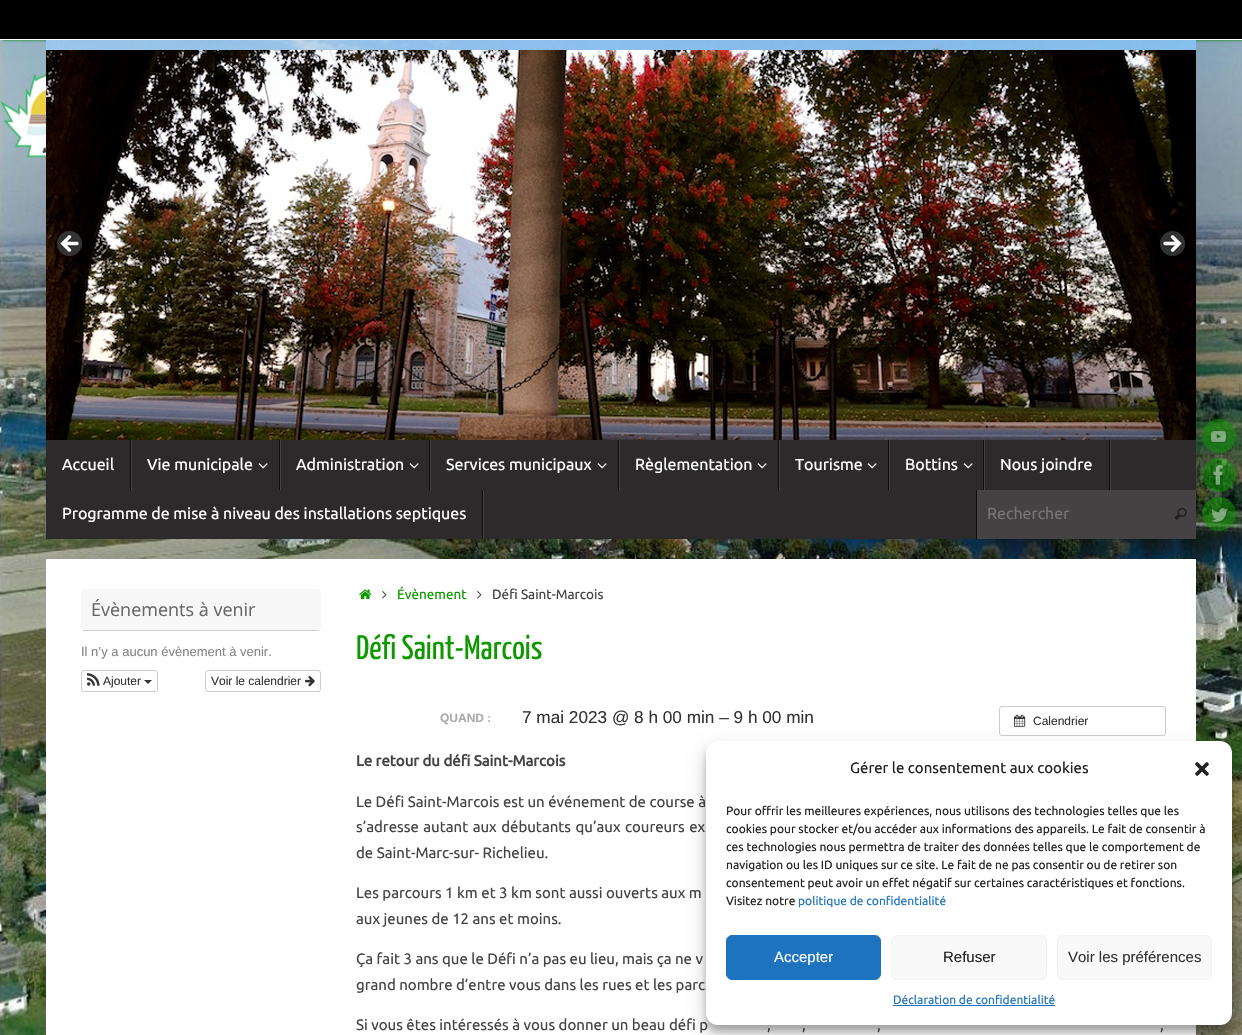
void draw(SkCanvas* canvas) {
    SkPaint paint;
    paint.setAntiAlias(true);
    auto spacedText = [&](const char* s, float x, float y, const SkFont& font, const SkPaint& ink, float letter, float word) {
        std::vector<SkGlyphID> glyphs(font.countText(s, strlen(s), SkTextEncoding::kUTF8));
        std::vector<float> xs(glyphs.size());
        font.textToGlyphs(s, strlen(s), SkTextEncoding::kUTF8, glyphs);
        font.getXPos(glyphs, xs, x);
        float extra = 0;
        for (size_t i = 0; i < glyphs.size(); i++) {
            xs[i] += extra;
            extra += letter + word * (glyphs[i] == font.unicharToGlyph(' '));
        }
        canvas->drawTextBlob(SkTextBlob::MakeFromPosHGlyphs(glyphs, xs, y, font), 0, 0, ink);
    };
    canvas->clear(0xFFFFFFFF);
    canvas->drawImageRect(SkImages::DeferredFromEncodedData(SkData::MakeFromFileName("img1.png")), SkRect::MakeXYWH(0, 40, 1242, 995), SkSamplingOptions());
    paint.setColor(0xFF008000);
    paint.setMaskFilter(SkMaskFilter::MakeBlur(kNormal_SkBlurStyle, 1.5f));
    canvas->drawRect(SkRect::MakeXYWH(3, 0, 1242, 40), paint);
    paint.setMaskFilter(nullptr);
    paint.setColor(0xFF000000);
    canvas->drawRect(SkRect::MakeXYWH(0, 0, 1242, 39), paint);
    paint.setColor(0xFFFFFFFF);
    canvas->drawRect(SkRect::MakeXYWH(0, 39, 1242, 1), paint);
    canvas->drawImageRect(SkImages::DeferredFromEncodedData(SkData::MakeFromFileName("img2.png")), SkRect::MakeXYWH(46, 40, 1150, 10), SkSamplingOptions());
    canvas->drawImageRect(SkImages::DeferredFromEncodedData(SkData::MakeFromFileName("img3.png")), SkRect::MakeXYWH(46, 50, 1150, 390), SkSamplingOptions());
    canvas->drawImageRect(SkImages::DeferredFromEncodedData(SkData::MakeFromFileName("img4.png")), SkRect::MakeXYWH(57, 231, 25, 25), SkSamplingOptions());
    canvas->drawImageRect(SkImages::DeferredFromEncodedData(SkData::MakeFromFileName("img5.png")), SkRect::MakeXYWH(1160, 231, 25, 25), SkSamplingOptions());
    paint.setColor(0xFF2D2A2B);
    canvas->drawRect(SkRect::MakeXYWH(46, 440, 1150, 99), paint);
    paint.setColor(0xFF454243);
    canvas->drawRect(SkRect::MakeXYWH(131, 440, 1, 50), paint);
    paint.setColor(0xFF0F0C0D);
    canvas->drawRect(SkRect::MakeXYWH(130, 440, 1, 50), paint);
    SkFont font1(fontMgr->matchFamilyStyle("Ubuntu", SkFontStyle::Normal()), 16);
    font1.setSubpixel(true);
    paint.setColor(0xFFFFFFFF);
    canvas->drawString("Accueil", 62, 470, font1, paint);
    paint.setColor(0xFF454243);
    canvas->drawRect(SkRect::MakeXYWH(280, 440, 1, 50), paint);
    paint.setColor(0xFF0F0C0D);
    canvas->drawRect(SkRect::MakeXYWH(279, 440, 1, 50), paint);
    paint.setColor(0xFFFFFFFF);
    canvas->drawString("Vie municipale", 147, 470, font1, paint);
    canvas->drawImageRect(SkImages::DeferredFromEncodedData(SkData::MakeFromFileName("img6.png")), SkRect::MakeXYWH(258, 463, 10, 6), SkSamplingOptions());
    paint.setColor(0xFF454243);
    canvas->drawRect(SkRect::MakeXYWH(430, 440, 1, 50), paint);
    paint.setColor(0xFF0F0C0D);
    canvas->drawRect(SkRect::MakeXYWH(429, 440, 1, 50), paint);
    paint.setColor(0xFFFFFFFF);
    canvas->drawString("Administration", 296, 470, font1, paint);
    canvas->drawImageRect(SkImages::DeferredFromEncodedData(SkData::MakeFromFileName("img6.png")), SkRect::MakeXYWH(409, 463, 10, 6), SkSamplingOptions());
    paint.setColor(0xFF454243);
    canvas->drawRect(SkRect::MakeXYWH(619, 440, 1, 50), paint);
    paint.setColor(0xFF0F0C0D);
    canvas->drawRect(SkRect::MakeXYWH(618, 440, 1, 50), paint);
    paint.setColor(0xFFFFFFFF);
    canvas->drawString("Services municipaux", 446, 470, font1, paint);
    canvas->drawImageRect(SkImages::DeferredFromEncodedData(SkData::MakeFromFileName("img6.png")), SkRect::MakeXYWH(597, 463, 10, 6), SkSamplingOptions());
    paint.setColor(0xFF454243);
    canvas->drawRect(SkRect::MakeXYWH(779, 440, 1, 50), paint);
    paint.setColor(0xFF0F0C0D);
    canvas->drawRect(SkRect::MakeXYWH(778, 440, 1, 50), paint);
    paint.setColor(0xFFFFFFFF);
    canvas->drawString("Règlementation", 635, 470, font1, paint);
    canvas->drawImageRect(SkImages::DeferredFromEncodedData(SkData::MakeFromFileName("img6.png")), SkRect::MakeXYWH(757, 463, 10, 6), SkSamplingOptions());
    paint.setColor(0xFF454243);
    canvas->drawRect(SkRect::MakeXYWH(889, 440, 1, 50), paint);
    paint.setColor(0xFF0F0C0D);
    canvas->drawRect(SkRect::MakeXYWH(888, 440, 1, 50), paint);
    paint.setColor(0xFFFFFFFF);
    canvas->drawString("Tourisme", 795, 470, font1, paint);
    canvas->drawImageRect(SkImages::DeferredFromEncodedData(SkData::MakeFromFileName("img6.png")), SkRect::MakeXYWH(867, 463, 10, 6), SkSamplingOptions());
    paint.setColor(0xFF454243);
    canvas->drawRect(SkRect::MakeXYWH(984, 440, 1, 50), paint);
    paint.setColor(0xFF0F0C0D);
    canvas->drawRect(SkRect::MakeXYWH(983, 440, 1, 50), paint);
    paint.setColor(0xFFFFFFFF);
    canvas->drawString("Bottins", 905, 470, font1, paint);
    canvas->drawImageRect(SkImages::DeferredFromEncodedData(SkData::MakeFromFileName("img6.png")), SkRect::MakeXYWH(963, 463, 10, 6), SkSamplingOptions());
    paint.setColor(0xFF454243);
    canvas->drawRect(SkRect::MakeXYWH(1110, 440, 1, 50), paint);
    paint.setColor(0xFF0F0C0D);
    canvas->drawRect(SkRect::MakeXYWH(1109, 440, 1, 50), paint);
    paint.setColor(0xFFFFFFFF);
    canvas->drawString("Nous joindre", 1000, 470, font1, paint);
    paint.setColor(0xFF454243);
    canvas->drawRect(SkRect::MakeXYWH(483, 490, 1, 49), paint);
    paint.setColor(0xFF0F0C0D);
    canvas->drawRect(SkRect::MakeXYWH(482, 490, 1, 49), paint);
    paint.setColor(0xFFFFFFFF);
    canvas->drawString("Programme de mise à niveau des installations septiques", 62, 519, font1, paint);
    paint.setColor(0xFF454243);
    canvas->drawRect(SkRect::MakeXYWH(977, 490, 219, 49), paint);
    paint.setColor(0xFF0F0C0D);
    canvas->drawRect(SkRect::MakeXYWH(976, 490, 1, 49), paint);
    paint.setColor(0xFF757575);
    canvas->drawString("Rechercher", 987, 519, font1, paint);
    canvas->drawImageRect(SkImages::DeferredFromEncodedData(SkData::MakeFromFileName("img7.png")), SkRect::MakeXYWH(1174, 507, 13, 13), SkSamplingOptions());
    paint.setColor(0x800E9900);
    canvas->drawCircle(1219, 436, 17, paint);
    canvas->drawImageRect(SkImages::DeferredFromEncodedData(SkData::MakeFromFileName("img8.png")), SkRect::MakeXYWH(1211, 431, 16, 12), SkSamplingOptions());
    canvas->drawCircle(1219, 475, 17, paint);
    canvas->drawImageRect(SkImages::DeferredFromEncodedData(SkData::MakeFromFileName("img9.png")), SkRect::MakeXYWH(1213, 465, 10, 21), SkSamplingOptions());
    canvas->drawCircle(1219, 514, 17, paint);
    canvas->drawImageRect(SkImages::DeferredFromEncodedData(SkData::MakeFromFileName("img10.png")), SkRect::MakeXYWH(1211, 508, 18, 15), SkSamplingOptions());
    paint.setColor(0xFFFFFFFF);
    canvas->drawRect(SkRect::MakeXYWH(46, 559, 1150, 476), paint);
    paint.setColor(0xFFF7F7F7);
    canvas->drawRoundRect(SkRect::MakeXYWH(81, 589, 240, 42), 4, 4, paint);
    paint.setColor(0xFFCFCFCF);
    canvas->drawRect(SkRect::MakeXYWH(83, 630, 236, 1), paint);
    SkFont font2(fontMgr->matchFamilyStyle("Open Sans", SkFontStyle::Normal()), 18);
    font2.setSubpixel(true);
    paint.setColor(0xFF666666);
    canvas->drawString("Évènements à venir", 91, 616, font2, paint);
    SkFont font3(fontMgr->matchFamilyStyle("Liberation Sans", SkFontStyle::Normal()), 13);
    font3.setSubpixel(true);
    paint.setColor(0xFF858585);
    canvas->drawString("Il n’y a aucun évènement à venir.", 81, 656, font3, paint);
    paint.setStyle(SkPaint::kStroke_Style);
    paint.setStrokeWidth(1);
    paint.setColor(0xFFCCCCCC);
    canvas->drawRoundRect(SkRect::MakeXYWH(81.5f, 670.5f, 76, 21), 2.5f, 2.5f, paint);
    canvas->drawImageRect(SkImages::DeferredFromEncodedData(SkData::MakeFromFileName("img11.png")), SkRect::MakeXYWH(87, 673, 13, 13), SkSamplingOptions());
    SkFont font4(fontMgr->matchFamilyStyle("Liberation Sans", SkFontStyle::Normal()), 12);
    font4.setSubpixel(true);
    paint.setStyle(SkPaint::kFill_Style);
    paint.setColor(0xFF333333);
    canvas->drawString("Ajouter", 103, 685, font4, paint);
    canvas->drawPath(SkPathBuilder().moveTo(144, 680).lineTo(152, 680).lineTo(148, 684).close().detach(), paint);
    paint.setStyle(SkPaint::kStroke_Style);
    paint.setColor(0xFFCCCCCC);
    canvas->drawRoundRect(SkRect::MakeXYWH(205.5f, 670.5f, 115, 21), 2.5f, 2.5f, paint);
    paint.setStyle(SkPaint::kFill_Style);
    paint.setColor(0xFF333333);
    canvas->drawString("Voir le calendrier", 211, 685, font4, paint);
    canvas->drawImageRect(SkImages::DeferredFromEncodedData(SkData::MakeFromFileName("img12.png")), SkRect::MakeXYWH(305, 676, 10, 11), SkSamplingOptions());
    canvas->drawImageRect(SkImages::DeferredFromEncodedData(SkData::MakeFromFileName("img13.png")), SkRect::MakeXYWH(359, 589, 13, 11), SkSamplingOptions());
    canvas->drawImageRect(SkImages::DeferredFromEncodedData(SkData::MakeFromFileName("img14.png")), SkRect::MakeXYWH(382, 591, 5, 8), SkSamplingOptions());
    SkFont font5(fontMgr->matchFamilyStyle("Ubuntu", SkFontStyle::Normal()), 13.5f);
    font5.setSubpixel(true);
    paint.setColor(0xFF0E9900);
    canvas->drawString("Évènement", 397, 599, font5, paint);
    canvas->drawImageRect(SkImages::DeferredFromEncodedData(SkData::MakeFromFileName("img14.png")), SkRect::MakeXYWH(477, 591, 5, 8), SkSamplingOptions());
    paint.setColor(0xFF444444);
    canvas->drawString("Défi Saint-Marcois", 492, 599, font5, paint);
    SkFont font6(fontMgr->matchFamilyStyle("Yanone Kaffeesatz", SkFontStyle::Normal()), 34);
    font6.setSubpixel(true);
    paint.setColor(0xFF0E9900);
    canvas->drawString("Défi Saint-Marcois", 356, 659, font6, paint);
    SkFont font7(fontMgr->matchFamilyStyle("Liberation Sans", SkFontStyle::Bold()), 12);
    font7.setSubpixel(true);
    paint.setColor(0xFFAAAAAA);
    canvas->drawString("QUAND :", 440, 722, font7, paint);
    SkFont font8(fontMgr->matchFamilyStyle("Liberation Sans", SkFontStyle::Normal()), 17.2f);
    font8.setSubpixel(true);
    paint.setColor(0xFF333333);
    canvas->drawString("7 mai 2023 @ 8 h 00 min – 9 h 00 min", 522, 723, font8, paint);
    paint.setStyle(SkPaint::kStroke_Style);
    paint.setColor(0xFFCCCCCC);
    canvas->drawRoundRect(SkRect::MakeXYWH(999.5f, 706.5f, 166, 29), 2.5f, 2.5f, paint);
    canvas->drawImageRect(SkImages::DeferredFromEncodedData(SkData::MakeFromFileName("img15.png")), SkRect::MakeXYWH(1014, 714, 12, 13), SkSamplingOptions());
    paint.setStyle(SkPaint::kFill_Style);
    paint.setColor(0xFF333333);
    canvas->drawString("Calendrier", 1033, 725, font4, paint);
    SkFont font9(fontMgr->matchFamilyStyle("Ubuntu", SkFontStyle::Bold()), 15);
    font9.setSubpixel(true);
    paint.setColor(0xFF444444);
    canvas->drawString("Le retour du défi Saint-Marcois", 356, 766, font9, paint);
    SkFont font10(fontMgr->matchFamilyStyle("Ubuntu", SkFontStyle::Normal()), 15);
    font10.setSubpixel(true);
    canvas->drawString("Le Défi Saint-Marcois est un événement de course à", 356, 807, font10, paint);
    spacedText("s’adresse autant aux débutants qu’aux coureurs ex", 356, 832, font10, paint, 0, 1);
    canvas->drawString("de Saint-Marc-sur- Richelieu.", 356, 858, font10, paint);
    canvas->drawString("Les parcours 1 km et 3 km sont aussi ouverts aux m", 356, 898, font10, paint);
    canvas->drawString("aux jeunes de 12 ans et moins.", 356, 924, font10, paint);
    canvas->drawString("Ça fait 3 ans que le Défi n’a pas eu lieu, mais ça ne v", 356, 964, font10, paint);
    canvas->drawString("grand nombre d’entre vous dans les rues et les parc", 356, 990, font10, paint);
    canvas->drawString("Si vous êtes intéressés à vous donner un beau défi p", 356, 1030, font10, paint);
    canvas->drawString(",", 767, 1030, font10, paint);
    canvas->drawString(",", 802, 1030, font10, paint);
    canvas->drawString(",", 877, 1030, font10, paint);
    canvas->drawString(",", 1160, 1030, font10, paint);
    paint.setColor(0x3B000000);
    paint.setMaskFilter(SkMaskFilter::MakeBlur(kNormal_SkBlurStyle, 3));
    canvas->drawRoundRect(SkRect::MakeXYWH(706, 747, 526, 284), 12, 12, paint);
    paint.setMaskFilter(nullptr);
    paint.setColor(0x30000000);
    paint.setMaskFilter(SkMaskFilter::MakeBlur(kNormal_SkBlurStyle, 10));
    canvas->drawRoundRect(SkRect::MakeXYWH(706, 751, 526, 284), 12, 12, paint);
    paint.setMaskFilter(nullptr);
    paint.setColor(0xFFFFFFFF);
    canvas->drawRoundRect(SkRect::MakeXYWH(706, 741, 526, 284), 12, 12, paint);
    paint.setColor(0xFF222222);
    canvas->drawString("Gérer le consentement aux cookies", 850, 773, font10, paint);
    canvas->drawImageRect(SkImages::DeferredFromEncodedData(SkData::MakeFromFileName("img16.png")), SkRect::MakeXYWH(1195, 762, 14, 14), SkSamplingOptions());
    SkFont font11(fontMgr->matchFamilyStyle("Ubuntu", SkFontStyle::Normal()), 12);
    font11.setSubpixel(true);
    canvas->drawString("Pour offrir les meilleures expériences, nous utilisons des technologies telles que les", 726, 815, font11, paint);
    canvas->drawString("cookies pour stocker et/ou accéder aux informations des appareils. Le fait de consentir à", 726, 833, font11, paint);
    canvas->drawString("ces technologies nous permettra de traiter des données telles que le comportement de", 726, 851, font11, paint);
    canvas->drawString("navigation ou les ID uniques sur ce site. Le fait de ne pas consentir ou de retirer son", 726, 869, font11, paint);
    canvas->drawString("consentement peut avoir un effet négatif sur certaines caractéristiques et fonctions.", 726, 887, font11, paint);
    canvas->drawString("Visitez notre", 726, 905, font11, paint);
    paint.setColor(0xFF1E73BE);
    canvas->drawString("politique de confidentialité", 798, 905, font11, paint);
    canvas->drawRoundRect(SkRect::MakeXYWH(726.5f, 935.5f, 154, 44), 5.5f, 5.5f, paint);
    paint.setStyle(SkPaint::kStroke_Style);
    canvas->drawRoundRect(SkRect::MakeXYWH(726.5f, 935.5f, 154, 44), 5.5f, 5.5f, paint);
    SkFont font12(fontMgr->matchFamilyStyle("Liberation Sans", SkFontStyle::Normal()), 15);
    font12.setSubpixel(true);
    paint.setStyle(SkPaint::kFill_Style);
    paint.setColor(0xFFFFFFFF);
    canvas->drawString("Accepter", 774, 962, font12, paint);
    paint.setColor(0xFFF9F9F9);
    canvas->drawRoundRect(SkRect::MakeXYWH(891.5f, 935.5f, 155, 44), 5.5f, 5.5f, paint);
    paint.setStyle(SkPaint::kStroke_Style);
    paint.setColor(0xFFF2F2F2);
    canvas->drawRoundRect(SkRect::MakeXYWH(891.5f, 935.5f, 155, 44), 5.5f, 5.5f, paint);
    paint.setStyle(SkPaint::kFill_Style);
    paint.setColor(0xFF222222);
    canvas->drawString("Refuser", 943, 962, font12, paint);
    paint.setColor(0xFFF9F9F9);
    canvas->drawRoundRect(SkRect::MakeXYWH(1057.5f, 935.5f, 154, 44), 5.5f, 5.5f, paint);
    paint.setStyle(SkPaint::kStroke_Style);
    paint.setColor(0xFFF2F2F2);
    canvas->drawRoundRect(SkRect::MakeXYWH(1057.5f, 935.5f, 154, 44), 5.5f, 5.5f, paint);
    paint.setStyle(SkPaint::kFill_Style);
    paint.setColor(0xFF333333);
    canvas->drawString("Voir les préférences", 1068, 962, font12, paint);
    paint.setColor(0xFF1E73BE);
    canvas->drawString("Déclaration de confidentialité", 893, 1004, font11, paint);
    canvas->drawRect(SkRect::MakeXYWH(893, 1005, 162, 1), paint);
}
